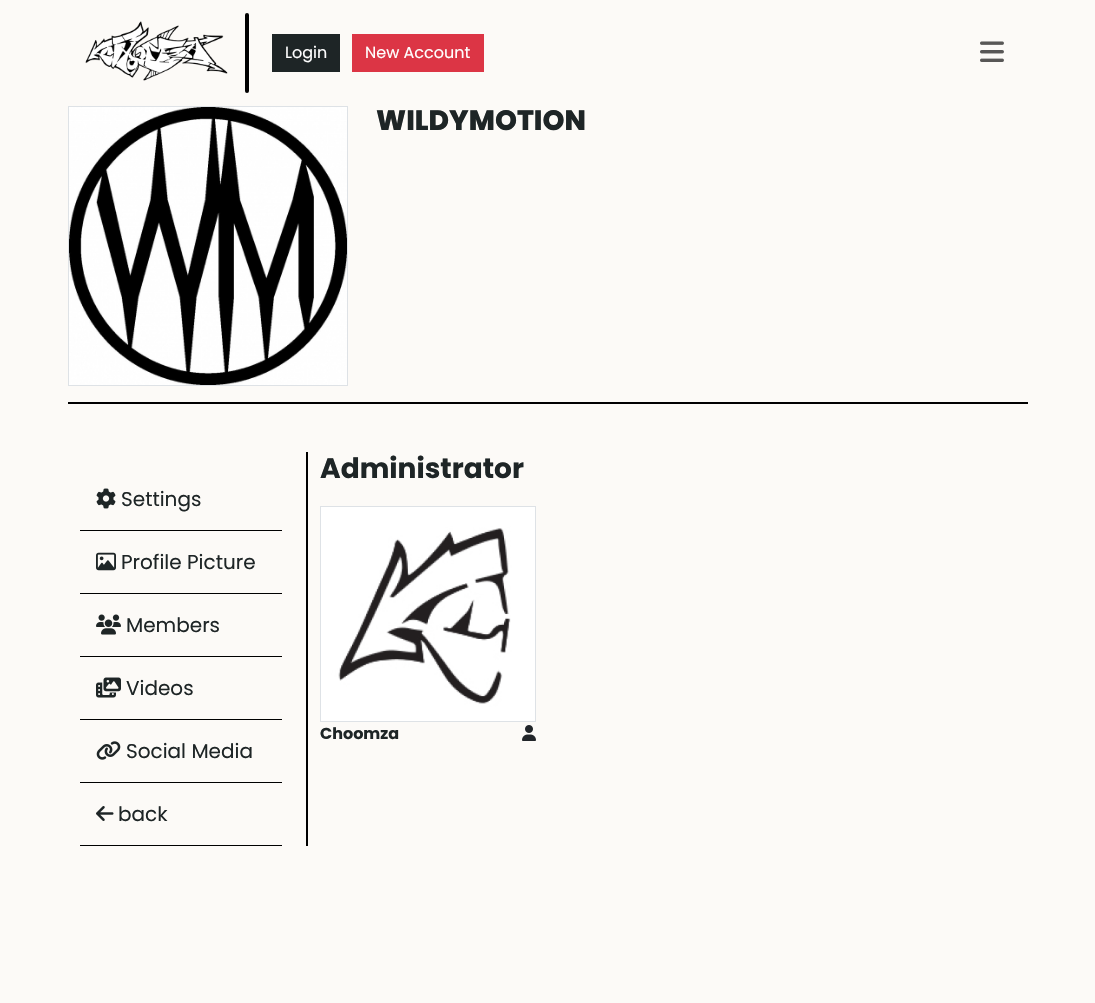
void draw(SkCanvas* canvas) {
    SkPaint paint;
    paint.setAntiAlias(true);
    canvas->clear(0xFFFCFAF7);
    canvas->drawImageRect(SkImages::DeferredFromEncodedData(SkData::MakeFromFileName("img1.png")), SkRect::MakeXYWH(85, 21, 143, 60), SkSamplingOptions());
    paint.setColor(0xFF000000);
    canvas->drawRoundRect(SkRect::MakeXYWH(245, 13, 4, 80), 2, 2, paint);
    paint.setColor(0xFF1E2526);
    canvas->drawRect(SkRect::MakeXYWH(272, 34, 68, 38), paint);
    SkFont font1(fontMgr->matchFamilyStyle("Poppins", SkFontStyle::Normal()), 16);
    font1.setSubpixel(true);
    paint.setColor(0xFFFFFFFF);
    canvas->drawString("Login", 285, 58, font1, paint);
    paint.setColor(0xFFDC3545);
    canvas->drawRect(SkRect::MakeXYWH(352, 34, 132, 38), paint);
    paint.setColor(0xFFFFFFFF);
    canvas->drawString("New Account", 365, 58, font1, paint);
    canvas->drawImageRect(SkImages::DeferredFromEncodedData(SkData::MakeFromFileName("img2.png")), SkRect::MakeXYWH(980, 41, 24, 21), SkSamplingOptions());
    paint.setColor(0xFF000000);
    canvas->drawRect(SkRect::MakeXYWH(68, 402, 960, 2), paint);
    paint.setStyle(SkPaint::kStroke_Style);
    paint.setStrokeWidth(1);
    paint.setColor(0xFFDEE2E6);
    canvas->drawRect(SkRect::MakeXYWH(68.5f, 106.5f, 279, 279), paint);
    canvas->drawImageRect(SkImages::DeferredFromEncodedData(SkData::MakeFromFileName("img3.png")), SkRect::MakeXYWH(69, 107, 278, 278), SkSamplingOptions());
    SkFont font2(fontMgr->matchFamilyStyle("Poppins", SkFontStyle(800, SkFontStyle::kNormal_Width, SkFontStyle::kUpright_Slant)), 28);
    font2.setSubpixel(true);
    paint.setStyle(SkPaint::kFill_Style);
    paint.setColor(0xFF1E2526);
    canvas->drawString("WILDYMOTION", 376, 130, font2, paint);
    paint.setColor(0xFF000000);
    canvas->drawRect(SkRect::MakeXYWH(306, 452, 2, 394), paint);
    canvas->drawRect(SkRect::MakeXYWH(80, 530, 202, 1), paint);
    canvas->drawImageRect(SkImages::DeferredFromEncodedData(SkData::MakeFromFileName("img4.png")), SkRect::MakeXYWH(96, 488, 20, 21), SkSamplingOptions());
    SkFont font3(fontMgr->matchFamilyStyle("Poppins", SkFontStyle::Normal()), 20);
    font3.setSubpixel(true);
    paint.setColor(0xFF1E2526);
    canvas->drawString("Settings", 121, 506, font3, paint);
    paint.setColor(0xFF000000);
    canvas->drawRect(SkRect::MakeXYWH(80, 593, 202, 1), paint);
    canvas->drawImageRect(SkImages::DeferredFromEncodedData(SkData::MakeFromFileName("img5.png")), SkRect::MakeXYWH(96, 552, 20, 19), SkSamplingOptions());
    paint.setColor(0xFF1E2526);
    canvas->drawString("Profile Picture", 121, 569, font3, paint);
    paint.setColor(0xFF000000);
    canvas->drawRect(SkRect::MakeXYWH(80, 656, 202, 1), paint);
    canvas->drawImageRect(SkImages::DeferredFromEncodedData(SkData::MakeFromFileName("img6.png")), SkRect::MakeXYWH(96, 614, 25, 21), SkSamplingOptions());
    paint.setColor(0xFF1E2526);
    canvas->drawString("Members", 126, 632, font3, paint);
    paint.setColor(0xFF000000);
    canvas->drawRect(SkRect::MakeXYWH(80, 719, 202, 1), paint);
    canvas->drawImageRect(SkImages::DeferredFromEncodedData(SkData::MakeFromFileName("img7.png")), SkRect::MakeXYWH(96, 677, 25, 21), SkSamplingOptions());
    paint.setColor(0xFF1E2526);
    canvas->drawString("Videos", 126, 695, font3, paint);
    paint.setColor(0xFF000000);
    canvas->drawRect(SkRect::MakeXYWH(80, 782, 202, 1), paint);
    canvas->drawImageRect(SkImages::DeferredFromEncodedData(SkData::MakeFromFileName("img8.png")), SkRect::MakeXYWH(96, 741, 25, 19), SkSamplingOptions());
    paint.setColor(0xFF1E2526);
    canvas->drawString("Social Media", 126, 758, font3, paint);
    paint.setColor(0xFF000000);
    canvas->drawRect(SkRect::MakeXYWH(80, 845, 202, 1), paint);
    canvas->drawImageRect(SkImages::DeferredFromEncodedData(SkData::MakeFromFileName("img9.png")), SkRect::MakeXYWH(96, 806, 18, 15), SkSamplingOptions());
    paint.setColor(0xFF1E2526);
    canvas->drawString("back", 118, 821, font3, paint);
    SkFont font4(fontMgr->matchFamilyStyle("Poppins", SkFontStyle::Bold()), 28);
    font4.setSubpixel(true);
    canvas->drawString("Administrator", 320, 478, font4, paint);
    paint.setStyle(SkPaint::kStroke_Style);
    paint.setColor(0xFFDEE2E6);
    canvas->drawRect(SkRect::MakeXYWH(320.5f, 506.5f, 215, 215), paint);
    canvas->drawImageRect(SkImages::DeferredFromEncodedData(SkData::MakeFromFileName("img10.png")), SkRect::MakeXYWH(321, 507, 214, 214), SkSamplingOptions());
    SkFont font5(fontMgr->matchFamilyStyle("Poppins", SkFontStyle::Bold()), 16);
    font5.setSubpixel(true);
    paint.setStyle(SkPaint::kFill_Style);
    paint.setColor(0xFF1E2526);
    canvas->drawString("Choomza", 320, 739, font5, paint);
    canvas->drawImageRect(SkImages::DeferredFromEncodedData(SkData::MakeFromFileName("img11.png")), SkRect::MakeXYWH(522, 725, 14, 16), SkSamplingOptions());
}
